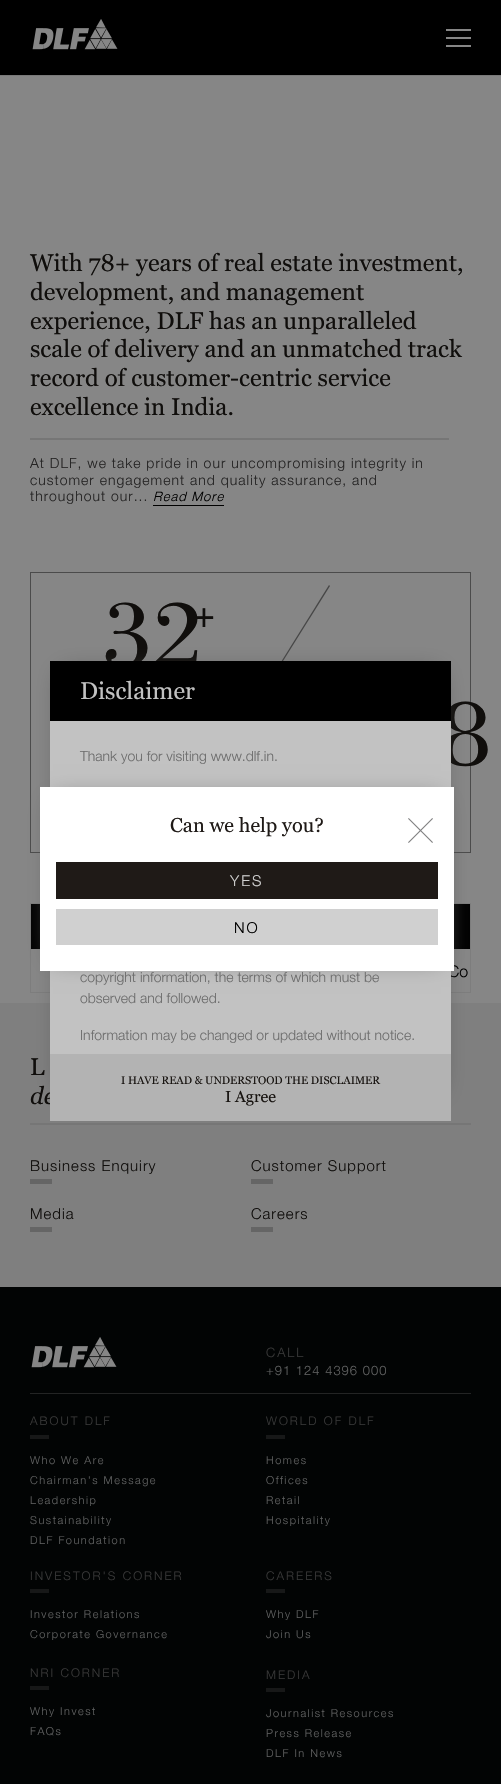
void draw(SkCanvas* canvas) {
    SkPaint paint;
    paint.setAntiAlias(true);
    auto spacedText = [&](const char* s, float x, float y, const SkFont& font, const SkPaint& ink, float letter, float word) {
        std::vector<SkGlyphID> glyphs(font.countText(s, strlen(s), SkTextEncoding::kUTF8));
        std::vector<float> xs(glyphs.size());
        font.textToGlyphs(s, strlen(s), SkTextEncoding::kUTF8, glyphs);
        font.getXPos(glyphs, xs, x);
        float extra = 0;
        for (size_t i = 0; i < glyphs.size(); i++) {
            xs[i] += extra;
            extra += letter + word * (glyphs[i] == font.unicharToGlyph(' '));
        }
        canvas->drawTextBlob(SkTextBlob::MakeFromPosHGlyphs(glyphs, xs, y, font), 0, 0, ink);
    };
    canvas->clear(0xFF868686);
    paint.setColor(0x4D000000);
    paint.setMaskFilter(SkMaskFilter::MakeBlur(kNormal_SkBlurStyle, 0.5f));
    canvas->drawRect(SkRect::MakeXYWH(0, 0, 501, 75), paint);
    paint.setMaskFilter(nullptr);
    paint.setMaskFilter(SkMaskFilter::MakeBlur(kNormal_SkBlurStyle, 0.5f));
    canvas->drawRect(SkRect::MakeXYWH(0, 0, 501, 75), paint);
    paint.setMaskFilter(nullptr);
    paint.setColor(0xFF000000);
    canvas->drawRect(SkRect::MakeXYWH(0, 0, 501, 75), paint);
    canvas->drawImageRect(SkImages::DeferredFromEncodedData(SkData::MakeFromFileName("img1.png")), SkRect::MakeXYWH(32, 19, 86, 31), SkSamplingOptions());
    paint.setColor(0xFF868686);
    canvas->drawRect(SkRect::MakeXYWH(446, 29, 25, 2), paint);
    canvas->drawRect(SkRect::MakeXYWH(446, 37, 25, 2), paint);
    canvas->drawRect(SkRect::MakeXYWH(446, 45, 25, 2), paint);
    SkFont font1(fontMgr->matchFamilyStyle("Georgia", SkFontStyle::Normal()), 24);
    font1.setSubpixel(true);
    paint.setColor(0xFF100E0C);
    canvas->drawString("With 78+ years of real estate investment,", 30, 271, font1, paint);
    canvas->drawString("development, and management", 30, 300, font1, paint);
    canvas->drawString("experience, DLF has an unparalleled", 30, 329, font1, paint);
    canvas->drawString("scale of delivery and an unmatched track", 30, 357, font1, paint);
    canvas->drawString("record of customer-centric service", 30, 386, font1, paint);
    canvas->drawString("excellence in India.", 30, 415, font1, paint);
    paint.setColor(0xFF767676);
    canvas->drawRect(SkRect::MakeXYWH(30, 438, 419, 2), paint);
    SkFont font2(fontMgr->matchFamilyStyle("Helvetica Neue", SkFontStyle(300, SkFontStyle::kNormal_Width, SkFontStyle::kUpright_Slant)), 14);
    font2.setSubpixel(true);
    paint.setColor(0xFF252424);
    spacedText("At DLF, we take pride in our uncompromising integrity in", 30, 468, font2, paint, 1, 0);
    spacedText("customer engagement and quality assurance, and", 30, 485, font2, paint, 1, 0);
    spacedText("throughout our...", 30, 501, font2, paint, 1, 0);
    paint.setColor(0xFF000000);
    canvas->drawRect(SkRect::MakeXYWH(153, 505, 71, 1), paint);
    SkFont font3(fontMgr->matchFamilyStyle("Helvetica Neue", SkFontStyle(300, SkFontStyle::kNormal_Width, SkFontStyle::kItalic_Slant)), 13);
    font3.setSubpixel(true);
    spacedText("Read More", 153, 501, font3, paint, 1, 0);
    paint.setStyle(SkPaint::kStroke_Style);
    paint.setStrokeWidth(1);
    paint.setColor(0xFF4B4B4B);
    canvas->drawRect(SkRect::MakeXYWH(30.5f, 572.5f, 440, 280), paint);
    SkFont font4(fontMgr->matchFamilyStyle("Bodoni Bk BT", SkFontStyle::Normal()), 100);
    font4.setSubpixel(true);
    paint.setStyle(SkPaint::kFill_Style);
    paint.setColor(0xFF100E0C);
    canvas->drawString("32", 103, 666, font4, paint);
    SkFont font5(fontMgr->matchFamilyStyle("Bodoni Bk BT", SkFontStyle::Bold()), 30);
    font5.setSubpixel(true);
    canvas->drawString("+", 191, 627, font5, paint);
    paint.setColor(0xFF464646);
    canvas->drawPath(SkPathBuilder().moveTo(329, 585).lineTo(330, 586).lineTo(171, 840).lineTo(170, 840).close().detach(), paint);
    paint.setColor(0xFF100E0C);
    canvas->drawString("8", 441, 765, font4, paint);
    paint.setStyle(SkPaint::kStroke_Style);
    paint.setColor(0xFF7D7D7D);
    canvas->drawRect(SkRect::MakeXYWH(30.5f, 903.5f, 440, 89), paint);
    paint.setStyle(SkPaint::kFill_Style);
    paint.setColor(0xFF000000);
    canvas->drawRect(SkRect::MakeXYWH(31, 904, 439, 45), paint);
    paint.setColor(0xFF7F7F7F);
    canvas->drawRect(SkRect::MakeXYWH(0, 1003, 501, 284), paint);
    paint.setColor(0xFF767676);
    canvas->drawRect(SkRect::MakeXYWH(30, 1123, 441, 2), paint);
    paint.setColor(0xFF4A4A4A);
    paint.setMaskFilter(SkMaskFilter::MakeBlur(kNormal_SkBlurStyle, 12));
    canvas->drawRect(SkRect::MakeXYWH(63, 674, 375, 416), paint);
    paint.setMaskFilter(nullptr);
    SkFont font6(fontMgr->matchFamilyStyle("Helvetica Neue", SkFontStyle(300, SkFontStyle::kNormal_Width, SkFontStyle::kUpright_Slant)), 16);
    font6.setSubpixel(true);
    paint.setColor(0xFF000000);
    canvas->drawString("Co", 448, 977, font6, paint);
    paint.setColor(0xFFC2C2C2);
    canvas->drawRect(SkRect::MakeXYWH(50, 721, 401, 333), paint);
    paint.setColor(0xFF000000);
    canvas->drawRect(SkRect::MakeXYWH(50, 661, 401, 60), paint);
    paint.setColor(0xFFC2C2C2);
    canvas->drawString("Disclaimer", 80, 699, font1, paint);
    paint.setColor(0xFF6D6D6D);
    canvas->drawString("Thank you for visiting www.dlf.in.", 80, 761, font2, paint);
    canvas->drawString("copyright information, the terms of which must be", 80, 982, font2, paint);
    canvas->drawString("observed and followed.", 80, 1003, font2, paint);
    canvas->drawString("Information may be changed or updated without notice.", 80, 1040, font2, paint);
    SkFont font7(fontMgr->matchFamilyStyle("Georgia", SkFontStyle::Italic()), 24);
    font7.setSubpixel(true);
    paint.setColor(0xFF100E0C);
    canvas->drawString("de", 30, 1104, font7, paint);
    paint.setColor(0xFFB3B3B3);
    canvas->drawRect(SkRect::MakeXYWH(50, 1054, 401, 67), paint);
    SkFont font8(fontMgr->matchFamilyStyle("Georgia", SkFontStyle::Normal()), 11);
    font8.setSubpixel(true);
    paint.setColor(0xFF181411);
    canvas->drawString("I HAVE READ & UNDERSTOOD THE DISCLAIMER", 121, 1084, font8, paint);
    SkFont font9(fontMgr->matchFamilyStyle("Georgia", SkFontStyle::Normal()), 16);
    font9.setSubpixel(true);
    canvas->drawString("I Agree", 225, 1102, font9, paint);
    paint.setColor(0xFF616161);
    paint.setMaskFilter(SkMaskFilter::MakeBlur(kNormal_SkBlurStyle, 12));
    canvas->drawRect(SkRect::MakeXYWH(53, 800, 388, 158), paint);
    paint.setMaskFilter(nullptr);
    paint.setColor(0xFFFFFFFF);
    canvas->drawRect(SkRect::MakeXYWH(40, 787, 414, 184), paint);
    SkFont font10(fontMgr->matchFamilyStyle("Georgia", SkFontStyle::Normal()), 20);
    font10.setSubpixel(true);
    paint.setColor(0xFF1F1A17);
    canvas->drawString("Can we help you?", 170, 832, font10, paint);
    canvas->drawRect(SkRect::MakeXYWH(56, 862, 382, 37), paint);
    SkFont font11(fontMgr->matchFamilyStyle("Helvetica Neue", SkFontStyle(300, SkFontStyle::kNormal_Width, SkFontStyle::kUpright_Slant)), 15);
    font11.setSubpixel(true);
    paint.setColor(0xFFD0D0D0);
    spacedText("YES", 230, 886, font11, paint, 2, 0);
    canvas->drawRect(SkRect::MakeXYWH(56, 909, 382, 36), paint);
    paint.setColor(0xFF000000);
    spacedText("NO", 234, 933, font11, paint, 2, 0);
    canvas->drawImageRect(SkImages::DeferredFromEncodedData(SkData::MakeFromFileName("img2.png")), SkRect::MakeXYWH(408, 818, 25, 25), SkSamplingOptions());
    paint.setColor(0xFF100E0C);
    canvas->drawString("L", 30, 1075, font1, paint);
    spacedText("Business Enquiry", 30, 1171, font11, paint, 1, 0);
    paint.setColor(0xFF656565);
    canvas->drawRect(SkRect::MakeXYWH(30, 1179, 22, 5), paint);
    paint.setColor(0xFF100E0C);
    spacedText("Customer Support", 251, 1171, font11, paint, 1, 0);
    paint.setColor(0xFF656565);
    canvas->drawRect(SkRect::MakeXYWH(251, 1179, 22, 5), paint);
    paint.setColor(0xFF100E0C);
    spacedText("Media", 30, 1219, font11, paint, 1, 0);
    paint.setColor(0xFF656565);
    canvas->drawRect(SkRect::MakeXYWH(30, 1227, 22, 5), paint);
    paint.setColor(0xFF100E0C);
    spacedText("Careers", 251, 1219, font11, paint, 1, 0);
    paint.setColor(0xFF656565);
    canvas->drawRect(SkRect::MakeXYWH(251, 1227, 22, 5), paint);
    paint.setColor(0xFF020404);
    canvas->drawRect(SkRect::MakeXYWH(0, 1287, 501, 497), paint);
    paint.setColor(0xFF232424);
    canvas->drawRect(SkRect::MakeXYWH(30, 1393, 441, 1), paint);
    canvas->drawImageRect(SkImages::DeferredFromEncodedData(SkData::MakeFromFileName("img3.png")), SkRect::MakeXYWH(31, 1337, 86, 31), SkSamplingOptions());
    SkFont font12(fontMgr->matchFamilyStyle("Helvetica Neue", SkFontStyle(300, SkFontStyle::kNormal_Width, SkFontStyle::kUpright_Slant)), 13);
    font12.setSubpixel(true);
    paint.setColor(0xFF373737);
    spacedText("CALL", 266, 1357, font12, paint, 2, 0);
    paint.setColor(0xFF5E5F5F);
    spacedText("+91 124 4396 000", 266, 1375, font12, paint, 1, 0);
    SkFont font13(fontMgr->matchFamilyStyle("Helvetica Neue", SkFontStyle(300, SkFontStyle::kNormal_Width, SkFontStyle::kUpright_Slant)), 12);
    font13.setSubpixel(true);
    paint.setColor(0xFF373737);
    spacedText("ABOUT DLF", 30, 1425, font13, paint, 2, 0);
    paint.setColor(0xFF171818);
    canvas->drawRect(SkRect::MakeXYWH(30, 1435, 19, 4), paint);
    SkFont font14(fontMgr->matchFamilyStyle("Helvetica Neue", SkFontStyle(300, SkFontStyle::kNormal_Width, SkFontStyle::kUpright_Slant)), 11);
    font14.setSubpixel(true);
    paint.setColor(0xFF5E5F5F);
    spacedText("Who We Are", 30, 1464, font14, paint, 1.5f, 0);
    spacedText("Chairman's Message", 30, 1484, font14, paint, 1.5f, 0);
    spacedText("Leadership", 30, 1504, font14, paint, 1.5f, 0);
    spacedText("Sustainability", 30, 1524, font14, paint, 1.5f, 0);
    spacedText("DLF Foundation", 30, 1544, font14, paint, 1.5f, 0);
    paint.setColor(0xFF373737);
    spacedText("WORLD OF DLF", 266, 1425, font13, paint, 2, 0);
    paint.setColor(0xFF171818);
    canvas->drawRect(SkRect::MakeXYWH(266, 1435, 19, 4), paint);
    paint.setColor(0xFF5E5F5F);
    spacedText("Homes", 266, 1464, font14, paint, 1.5f, 0);
    spacedText("Offices", 266, 1484, font14, paint, 1.5f, 0);
    spacedText("Retail", 266, 1504, font14, paint, 1.5f, 0);
    spacedText("Hospitality", 266, 1524, font14, paint, 1.5f, 0);
    paint.setColor(0xFF373737);
    spacedText("INVESTOR'S CORNER", 30, 1580, font13, paint, 2, 0);
    paint.setColor(0xFF171818);
    canvas->drawRect(SkRect::MakeXYWH(30, 1589, 19, 4), paint);
    paint.setColor(0xFF5E5F5F);
    spacedText("Investor Relations", 30, 1618, font14, paint, 1.5f, 0);
    spacedText("Corporate Governance", 30, 1638, font14, paint, 1.5f, 0);
    paint.setColor(0xFF373737);
    spacedText("NRI CORNER", 30, 1677, font13, paint, 2, 0);
    paint.setColor(0xFF171818);
    canvas->drawRect(SkRect::MakeXYWH(30, 1686, 19, 4), paint);
    paint.setColor(0xFF5E5F5F);
    spacedText("Why Invest", 30, 1715, font14, paint, 1.5f, 0);
    spacedText("FAQs", 30, 1735, font14, paint, 1.5f, 0);
    paint.setColor(0xFF373737);
    spacedText("CAREERS", 266, 1580, font13, paint, 2, 0);
    paint.setColor(0xFF171818);
    canvas->drawRect(SkRect::MakeXYWH(266, 1589, 19, 4), paint);
    paint.setColor(0xFF5E5F5F);
    spacedText("Why DLF", 266, 1618, font14, paint, 1.5f, 0);
    spacedText("Join Us", 266, 1638, font14, paint, 1.5f, 0);
    paint.setColor(0xFF373737);
    spacedText("MEDIA", 266, 1679, font13, paint, 2, 0);
    paint.setColor(0xFF171818);
    canvas->drawRect(SkRect::MakeXYWH(266, 1688, 19, 4), paint);
    paint.setColor(0xFF5E5F5F);
    spacedText("Journalist Resources", 266, 1717, font14, paint, 1.5f, 0);
    spacedText("Press Release", 266, 1737, font14, paint, 1.5f, 0);
    spacedText("DLF In News", 266, 1757, font14, paint, 1.5f, 0);
}
